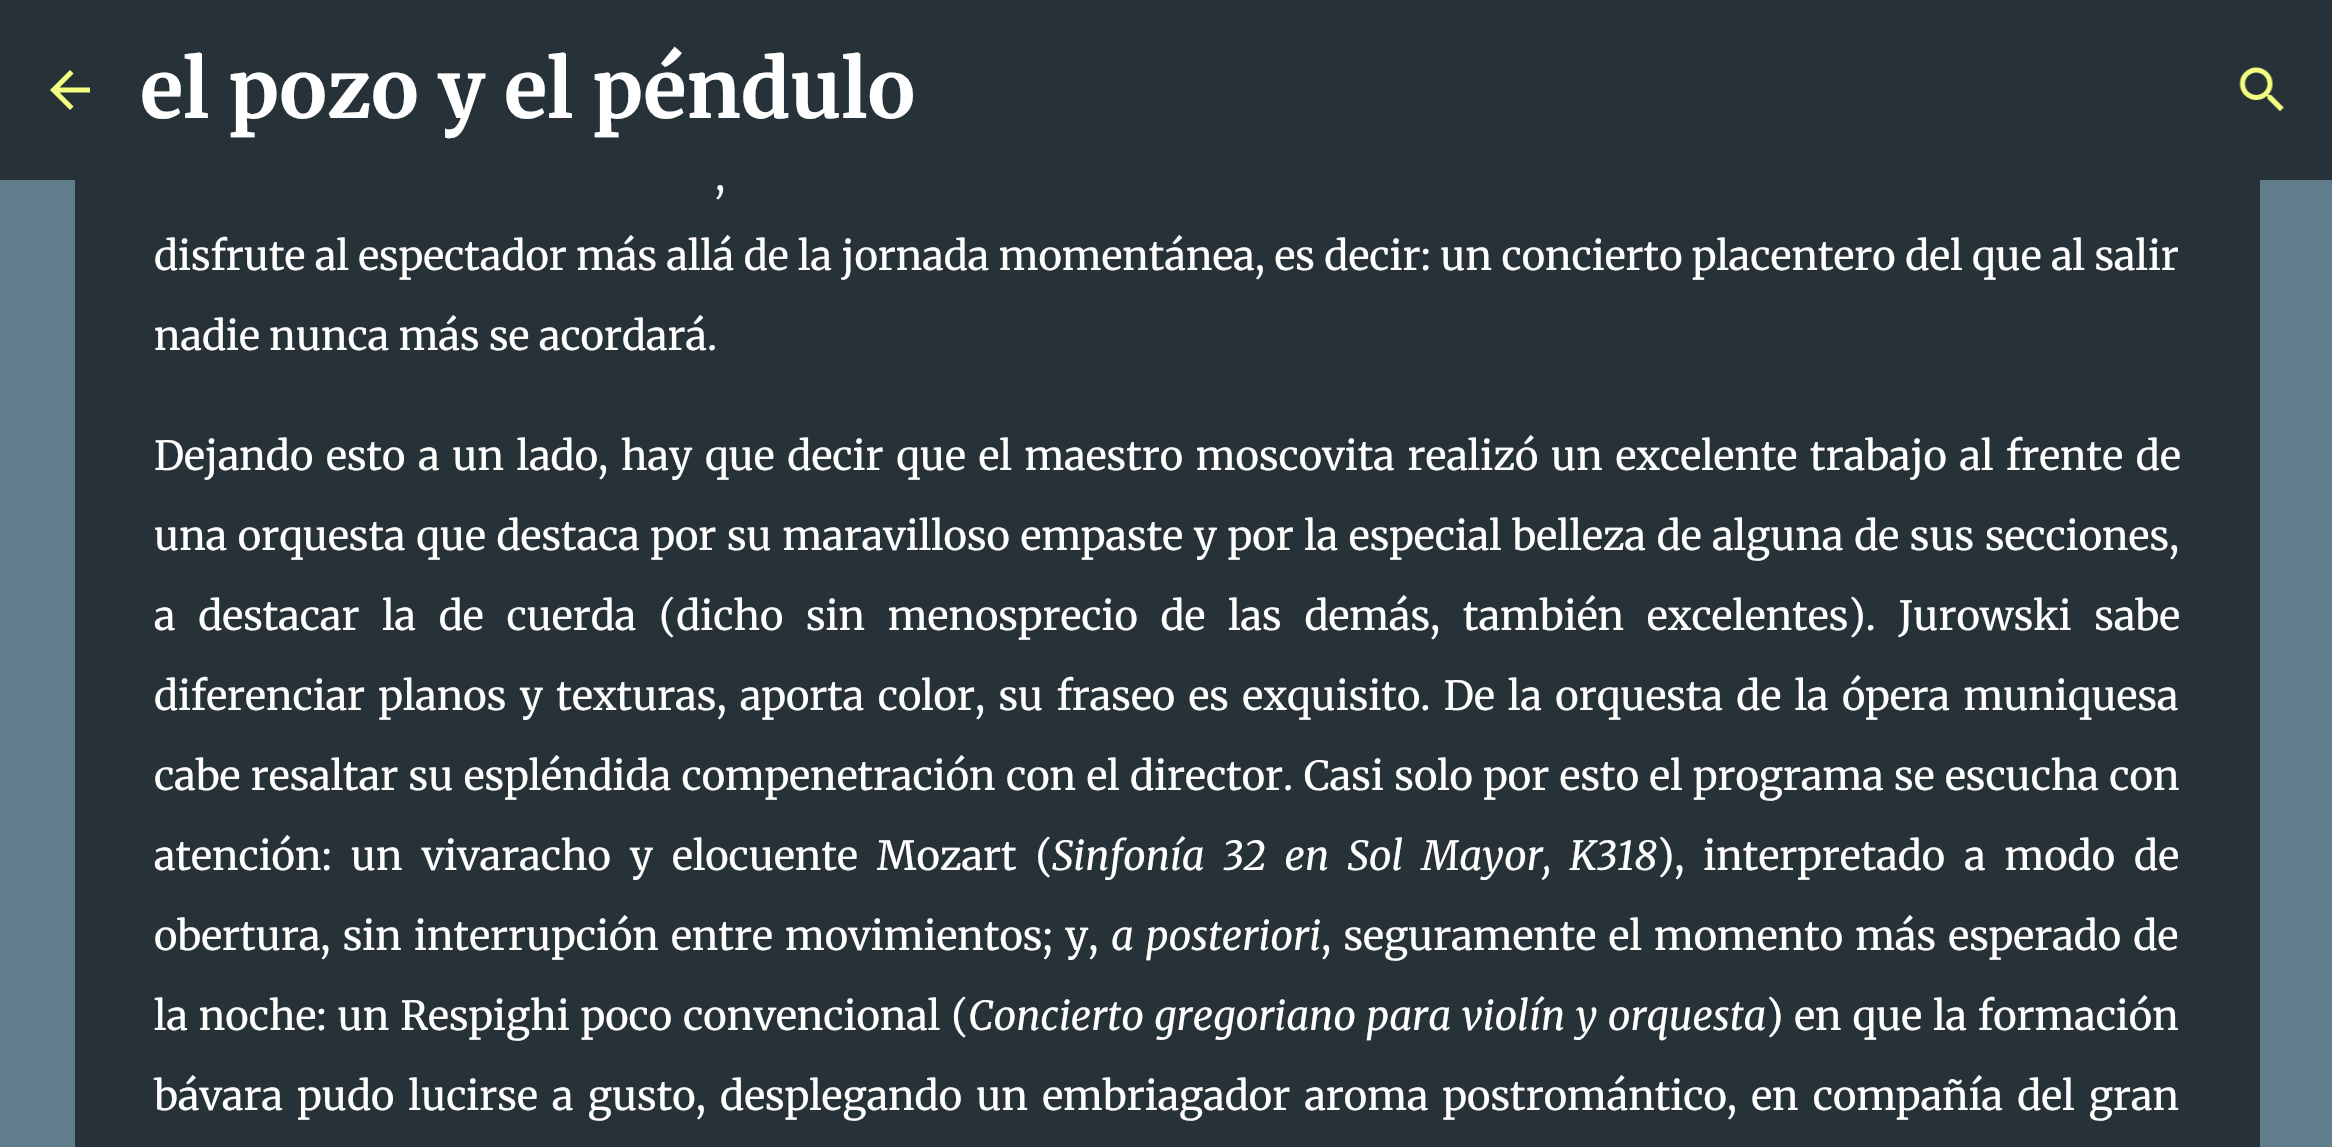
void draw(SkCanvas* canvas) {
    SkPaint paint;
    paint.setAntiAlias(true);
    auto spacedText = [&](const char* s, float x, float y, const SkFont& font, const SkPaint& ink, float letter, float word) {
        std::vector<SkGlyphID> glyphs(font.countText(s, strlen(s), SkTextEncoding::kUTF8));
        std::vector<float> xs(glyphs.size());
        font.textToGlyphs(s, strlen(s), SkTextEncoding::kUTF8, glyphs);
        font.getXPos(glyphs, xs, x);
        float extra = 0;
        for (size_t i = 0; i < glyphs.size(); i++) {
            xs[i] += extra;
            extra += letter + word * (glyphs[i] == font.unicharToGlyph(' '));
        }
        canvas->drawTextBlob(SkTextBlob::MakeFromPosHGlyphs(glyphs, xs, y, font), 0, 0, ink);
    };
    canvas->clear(0xFF607D8B);
    paint.setColor(0xFF263238);
    canvas->drawRect(SkRect::MakeXYWH(0, 0, 2332, 180), paint);
    canvas->drawImageRect(SkImages::DeferredFromEncodedData(SkData::MakeFromFileName("img1.png")), SkRect::MakeXYWH(50, 70, 40, 40), SkSamplingOptions());
    SkFont font1(fontMgr->matchFamilyStyle("Merriweather", SkFontStyle::Bold()), 80);
    font1.setSubpixel(true);
    paint.setColor(0xFFFFFFFF);
    canvas->drawString("el pozo y el péndulo", 140, 118, font1, paint);
    canvas->drawImageRect(SkImages::DeferredFromEncodedData(SkData::MakeFromFileName("img2.png")), SkRect::MakeXYWH(2239, 67, 45, 45), SkSamplingOptions());
    paint.setColor(0xFF263238);
    canvas->drawRect(SkRect::MakeXYWH(75, 180, 2185, 967), paint);
    SkFont font2(fontMgr->matchFamilyStyle("Merriweather", SkFontStyle::Normal()), 40);
    font2.setSubpixel(true);
    paint.setColor(0xFFFFFFFF);
    spacedText(",", 715, 190, font2, paint, 0, 9);
    canvas->drawString("disfrute al espectador más allá de la jornada momentánea, es decir: un concierto placentero del que al salir", 154, 270, font2, paint);
    canvas->drawString("nadie nunca más se acordará.", 154, 350, font2, paint);
    spacedText("Dejando esto a un lado, hay que decir que el maestro moscovita realizó un excelente trabajo al frente de", 154, 470, font2, paint, 0, 3.25f);
    spacedText("una orquesta que destaca por su maravilloso empaste y por la especial belleza de alguna de sus secciones,", 154, 550, font2, paint, 0, 1.2f);
    spacedText("a destacar la de cuerda (dicho sin menosprecio de las demás, también excelentes). Jurowski sabe", 154, 630, font2, paint, 0, 13.25f);
    spacedText("diferenciar planos y texturas, aporta color, su fraseo es exquisito. De la orquesta de la ópera muniquesa", 154, 710, font2, paint, 0, 3.9f);
    spacedText("cabe resaltar su espléndida compenetración con el director. Casi solo por esto el programa se escucha con", 154, 790, font2, paint, 0, 0.9f);
    spacedText("atención: un vivaracho y elocuente Mozart (", 154, 870, font2, paint, 0, 9.5f);
    SkFont font3(fontMgr->matchFamilyStyle("Merriweather", SkFontStyle::Italic()), 40);
    font3.setSubpixel(true);
    spacedText("Sinfonía 32 en Sol Mayor, K318", 1052, 870, font3, paint, 0, 9.5f);
    spacedText("), interpretado a modo de", 1657, 870, font2, paint, 0, 9.5f);
    spacedText("obertura, sin interrupción entre movimientos; y,", 154, 950, font2, paint, 0, 2.75f);
    spacedText("a posteriori", 1111, 950, font3, paint, 0, 3);
    spacedText(", seguramente el momento más esperado de", 1321, 950, font2, paint, 0, 2.75f);
    spacedText("la noche: un Respighi poco convencional (", 154, 1030, font2, paint, 0, 1.5f);
    spacedText("Concierto gregoriano para violín y orquesta", 968, 1030, font3, paint, 0, 1.5f);
    spacedText(") en que la formación", 1766, 1030, font2, paint, 0, 1.5f);
    spacedText("bávara pudo lucirse a gusto, desplegando un embriagador aroma postromántico, en compañía del gran", 154, 1110, font2, paint, 0, 4.75f);
}
